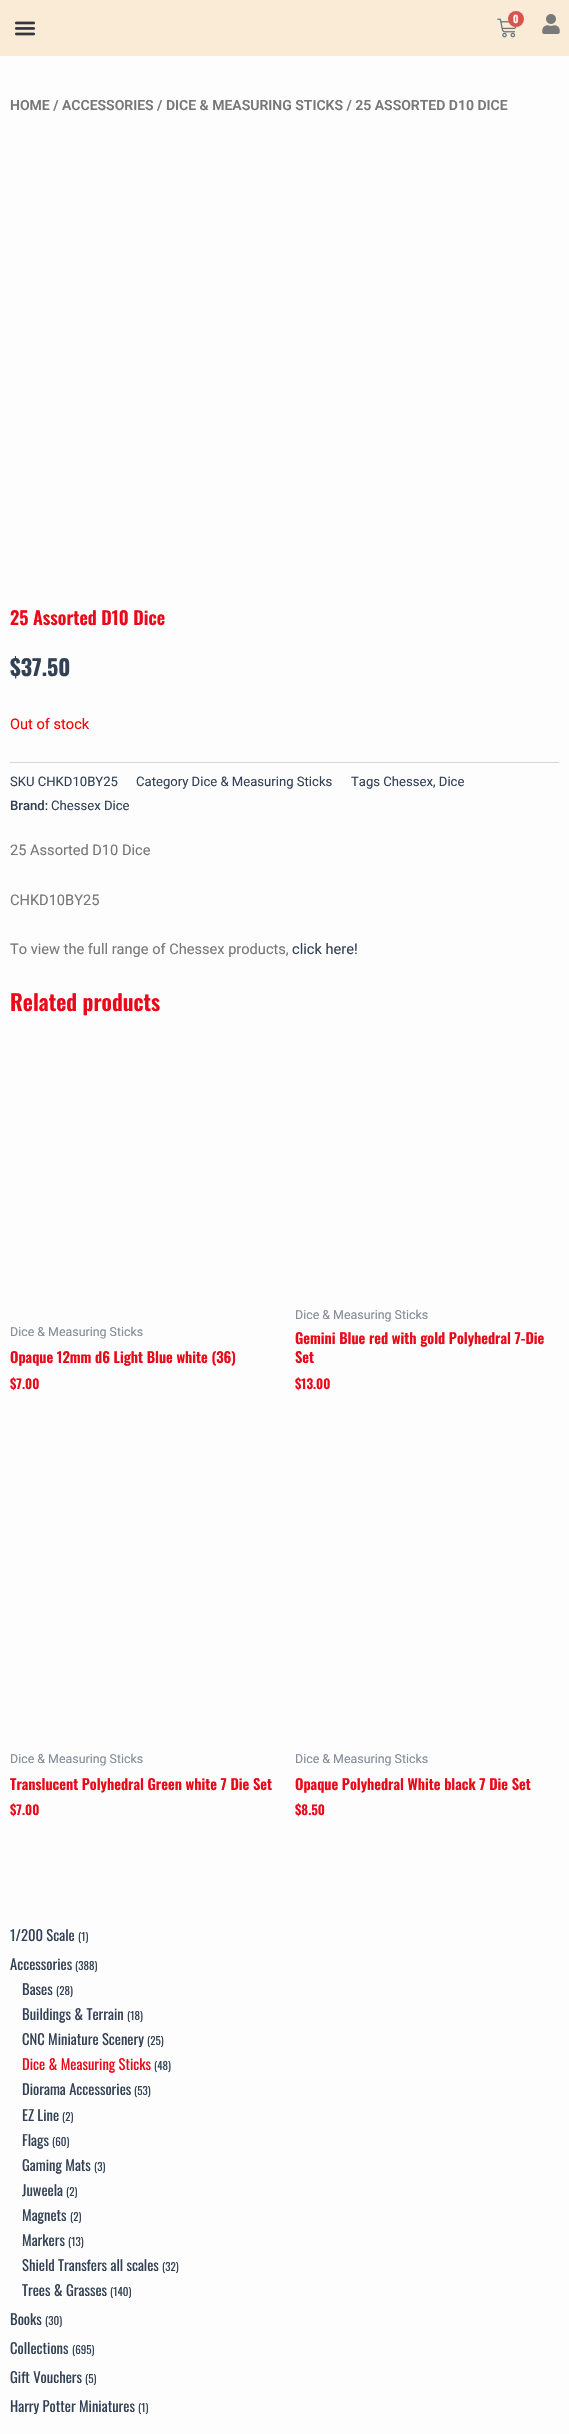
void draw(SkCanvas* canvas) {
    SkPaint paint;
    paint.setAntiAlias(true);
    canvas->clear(0xFFFDFDFD);
    paint.setColor(0xFFFAEBD7);
    canvas->drawRect(SkRect::MakeXYWH(0, 0, 569, 56), paint);
    canvas->drawImageRect(SkImages::DeferredFromEncodedData(SkData::MakeFromFileName("img1.png")), SkRect::MakeXYWH(497, 18, 20, 20), SkSamplingOptions());
    paint.setColor(0xFFD9534F);
    canvas->drawCircle(516, 19, 8, paint);
    SkFont font1(fontMgr->matchFamilyStyle("Oswald", SkFontStyle(600, SkFontStyle::kNormal_Width, SkFontStyle::kUpright_Slant)), 10);
    font1.setSubpixel(true);
    paint.setColor(0xFFFFFFFF);
    canvas->drawString("0", 513, 23, font1, paint);
    canvas->drawImageRect(SkImages::DeferredFromEncodedData(SkData::MakeFromFileName("img2.png")), SkRect::MakeXYWH(542, 14, 18, 20), SkSamplingOptions());
    canvas->drawImageRect(SkImages::DeferredFromEncodedData(SkData::MakeFromFileName("img3.png")), SkRect::MakeXYWH(14, 21, 22, 15), SkSamplingOptions());
    SkFont font2(fontMgr->matchFamilyStyle("Roboto", SkFontStyle(600, SkFontStyle::kNormal_Width, SkFontStyle::kUpright_Slant)), 14);
    font2.setSubpixel(true);
    paint.setColor(0xFF777777);
    canvas->drawString("HOME / ACCESSORIES / DICE & MEASURING STICKS / 25 ASSORTED D10 DICE", 10, 110, font2, paint);
    SkFont font3(fontMgr->matchFamilyStyle("Oswald", SkFontStyle(600, SkFontStyle::kNormal_Width, SkFontStyle::kUpright_Slant)), 18.25f);
    font3.setSubpixel(true);
    paint.setColor(0xFFEB0919);
    canvas->drawString("25 Assorted D10 Dice", 10, 625, font3, paint);
    SkFont font4(fontMgr->matchFamilyStyle("Oswald", SkFontStyle::Bold()), 22);
    font4.setSubpixel(true);
    paint.setColor(0xFF334155);
    canvas->drawString("$37.50", 10, 676, font4, paint);
    SkFont font5(fontMgr->matchFamilyStyle("Roboto", SkFontStyle::Normal()), 14.6f);
    font5.setSubpixel(true);
    paint.setColor(0xFFFF0000);
    canvas->drawString("Out of stock", 10, 729, font5, paint);
    paint.setColor(0xFFD1D5DB);
    canvas->drawRect(SkRect::MakeXYWH(10, 762, 549, 1), paint);
    SkFont font6(fontMgr->matchFamilyStyle("Roboto", SkFontStyle::Normal()), 13.1f);
    font6.setSubpixel(true);
    paint.setColor(0xFF334155);
    canvas->drawString("SKU CHKD10BY25", 10, 786, font6, paint);
    canvas->drawString("Category Dice & Measuring Sticks", 136, 786, font6, paint);
    canvas->drawString("Tags Chessex, Dice", 351, 786, font6, paint);
    SkFont font7(fontMgr->matchFamilyStyle("Roboto", SkFontStyle(500, SkFontStyle::kNormal_Width, SkFontStyle::kUpright_Slant)), 13.1f);
    font7.setSubpixel(true);
    canvas->drawString("Brand:", 10, 810, font7, paint);
    canvas->drawString("Chessex Dice", 51, 810, font6, paint);
    paint.setColor(0xFF777777);
    canvas->drawString("25 Assorted D10 Dice", 10, 855, font5, paint);
    canvas->drawString("CHKD10BY25", 10, 905, font5, paint);
    canvas->drawString("To view the full range of Chessex products,", 10, 954, font5, paint);
    paint.setColor(0xFF334155);
    canvas->drawString("click here!", 292, 954, font5, paint);
    SkFont font8(fontMgr->matchFamilyStyle("Oswald", SkFontStyle(600, SkFontStyle::kNormal_Width, SkFontStyle::kUpright_Slant)), 22);
    font8.setSubpixel(true);
    paint.setColor(0xFFEB0919);
    canvas->drawString("Related products", 10, 1011, font8, paint);
    SkFont font9(fontMgr->matchFamilyStyle("Roboto", SkFontStyle::Normal()), 12.4f);
    font9.setSubpixel(true);
    paint.setColor(0xFF848C98);
    canvas->drawString("Dice & Measuring Sticks", 10, 1336, font9, paint);
    SkFont font10(fontMgr->matchFamilyStyle("Oswald", SkFontStyle(600, SkFontStyle::kNormal_Width, SkFontStyle::kUpright_Slant)), 14.6f);
    font10.setSubpixel(true);
    paint.setColor(0xFFEB0919);
    canvas->drawString("Opaque 12mm d6 Light Blue white (36)", 10, 1363, font10, paint);
    SkFont font11(fontMgr->matchFamilyStyle("Oswald", SkFontStyle(600, SkFontStyle::kNormal_Width, SkFontStyle::kUpright_Slant)), 13.1f);
    font11.setSubpixel(true);
    canvas->drawString("$7.00", 10, 1389, font11, paint);
    paint.setColor(0xFF848C98);
    canvas->drawString("Dice & Measuring Sticks", 295, 1319, font9, paint);
    paint.setColor(0xFFEB0919);
    canvas->drawString("Gemini Blue red with gold Polyhedral 7-Die", 295, 1344, font10, paint);
    canvas->drawString("Set", 295, 1363, font10, paint);
    canvas->drawString("$13.00", 295, 1389, font11, paint);
    paint.setColor(0xFF848C98);
    canvas->drawString("Dice & Measuring Sticks", 10, 1763, font9, paint);
    paint.setColor(0xFFEB0919);
    canvas->drawString("Translucent Polyhedral Green white 7 Die Set", 10, 1790, font10, paint);
    canvas->drawString("$7.00", 10, 1815, font11, paint);
    paint.setColor(0xFF848C98);
    canvas->drawString("Dice & Measuring Sticks", 295, 1763, font9, paint);
    paint.setColor(0xFFEB0919);
    canvas->drawString("Opaque Polyhedral White black 7 Die Set", 295, 1790, font10, paint);
    canvas->drawString("$8.50", 295, 1815, font11, paint);
    SkFont font12(fontMgr->matchFamilyStyle("Oswald", SkFontStyle::Normal()), 14.6f);
    font12.setSubpixel(true);
    paint.setColor(0xFF334155);
    canvas->drawString("1/200 Scale", 10, 1941, font12, paint);
    SkFont font13(fontMgr->matchFamilyStyle("Oswald", SkFontStyle::Normal()), 11);
    font13.setSubpixel(true);
    canvas->drawString("(1)", 78, 1941, font13, paint);
    canvas->drawString("Accessories", 10, 1970, font12, paint);
    canvas->drawString("(388)", 75, 1970, font13, paint);
    canvas->drawString("Bases", 22, 1995, font12, paint);
    canvas->drawString("(28)", 56, 1995, font13, paint);
    canvas->drawString("Buildings & Terrain", 22, 2020, font12, paint);
    canvas->drawString("(18)", 127, 2020, font13, paint);
    canvas->drawString("CNC Miniature Scenery", 22, 2045, font12, paint);
    canvas->drawString("(25)", 147, 2045, font13, paint);
    paint.setColor(0xFFEB0919);
    canvas->drawString("Dice & Measuring Sticks", 22, 2070, font12, paint);
    paint.setColor(0xFF334155);
    canvas->drawString("(48)", 154, 2070, font13, paint);
    canvas->drawString("Diorama Accessories", 22, 2095, font12, paint);
    canvas->drawString("(53)", 134, 2095, font13, paint);
    canvas->drawString("EZ Line", 22, 2121, font12, paint);
    canvas->drawString("(2)", 62, 2121, font13, paint);
    canvas->drawString("Flags", 22, 2146, font12, paint);
    canvas->drawString("(60)", 52, 2146, font13, paint);
    canvas->drawString("Gaming Mats", 22, 2171, font12, paint);
    canvas->drawString("(3)", 94, 2171, font13, paint);
    canvas->drawString("Juweela", 22, 2196, font12, paint);
    canvas->drawString("(2)", 66, 2196, font13, paint);
    canvas->drawString("Magnets", 22, 2221, font12, paint);
    canvas->drawString("(2)", 70, 2221, font13, paint);
    canvas->drawString("Markers", 22, 2246, font12, paint);
    canvas->drawString("(13)", 68, 2246, font13, paint);
    canvas->drawString("Shield Transfers all scales", 22, 2271, font12, paint);
    canvas->drawString("(32)", 162, 2271, font13, paint);
    canvas->drawString("Trees & Grasses", 22, 2296, font12, paint);
    canvas->drawString("(140)", 110, 2296, font13, paint);
    canvas->drawString("Books", 10, 2325, font12, paint);
    canvas->drawString("(30)", 45, 2325, font13, paint);
    canvas->drawString("Collections", 10, 2354, font12, paint);
    canvas->drawString("(695)", 72, 2354, font13, paint);
    canvas->drawString("Gift Vouchers", 10, 2383, font12, paint);
    canvas->drawString("(5)", 85, 2383, font13, paint);
    canvas->drawString("Harry Potter Miniatures", 10, 2412, font12, paint);
    canvas->drawString("(1)", 138, 2412, font13, paint);
}
